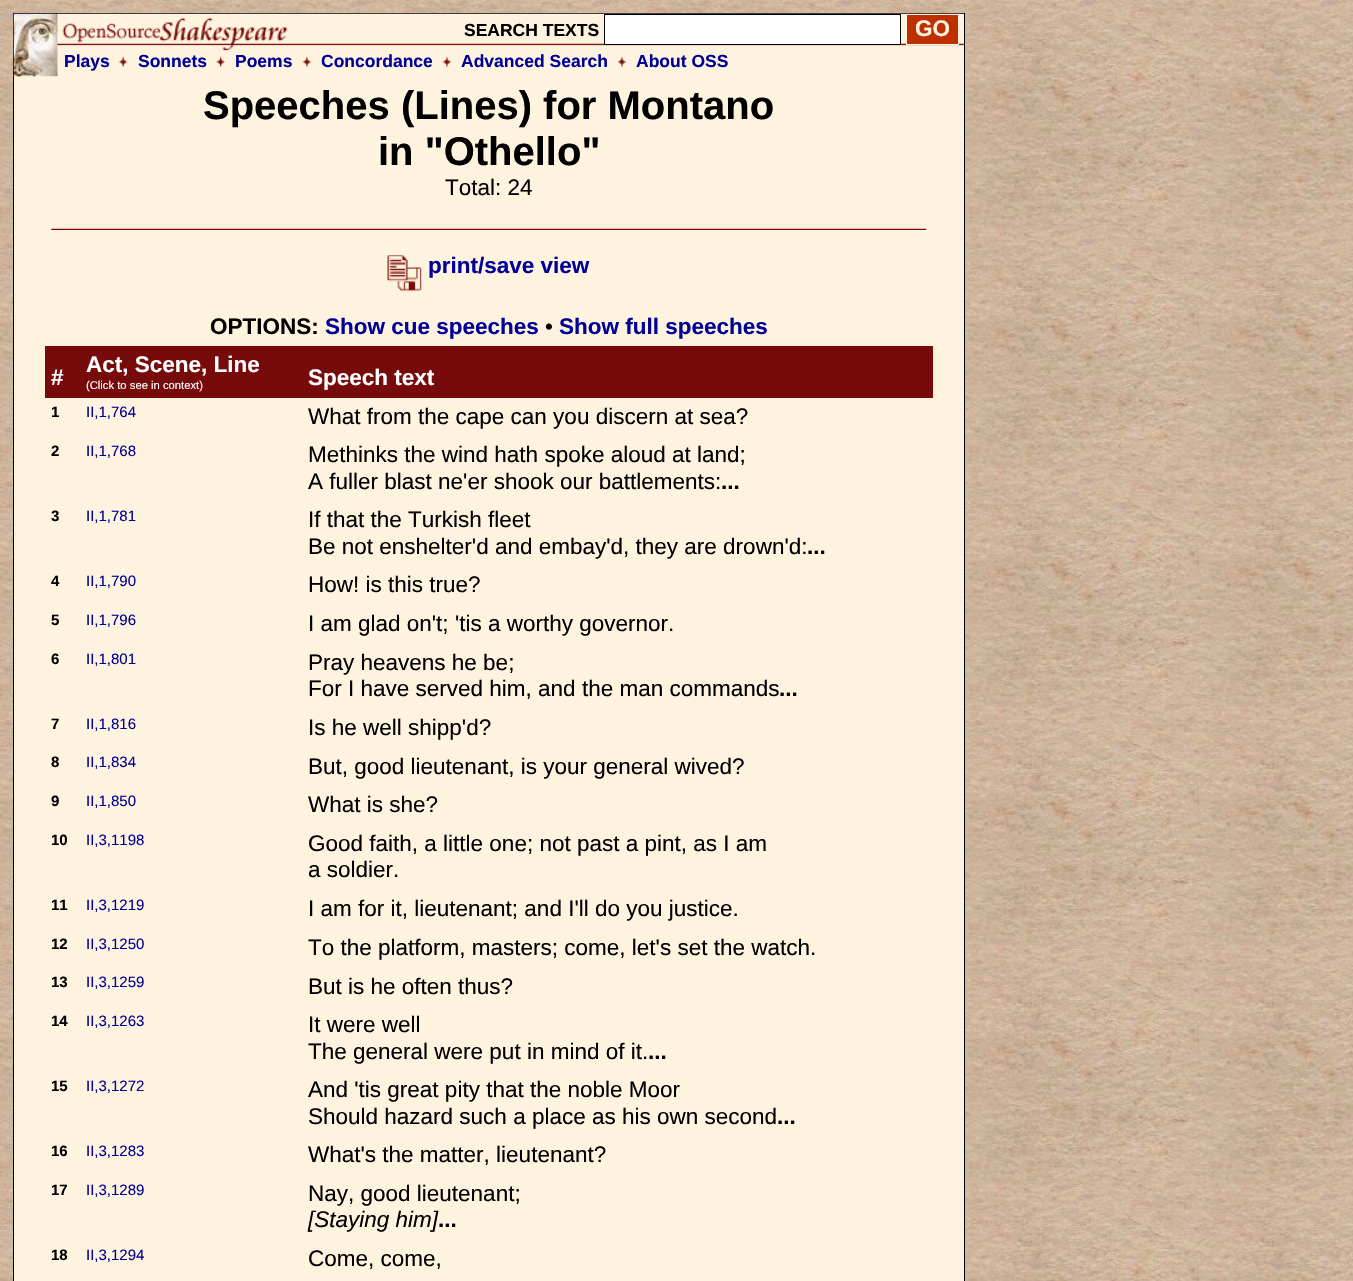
void draw(SkCanvas* canvas) {
    SkPaint paint;
    paint.setAntiAlias(true);
    canvas->clear(0xFFFFFFFF);
    canvas->drawImageRect(SkImages::DeferredFromEncodedData(SkData::MakeFromFileName("img1.png")), SkRect::MakeXYWH(0, 0, 1353, 1281), SkSamplingOptions());
    paint.setColor(0xFFFEF3DE);
    canvas->drawRect(SkRect::MakeXYWH(13.5f, 13.5f, 951, 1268), paint);
    paint.setStyle(SkPaint::kStroke_Style);
    paint.setStrokeWidth(1);
    paint.setColor(0xFF000000);
    canvas->drawRect(SkRect::MakeXYWH(13.5f, 13.5f, 951, 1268), paint);
    canvas->drawImageRect(SkImages::DeferredFromEncodedData(SkData::MakeFromFileName("img2.png")), SkRect::MakeXYWH(13, 13, 951, 64), SkSamplingOptions());
    SkFont font1(fontMgr->matchFamilyStyle("Liberation Sans", SkFontStyle::Bold()), 17.5f);
    font1.setSubpixel(true);
    paint.setStyle(SkPaint::kFill_Style);
    canvas->drawString("SEARCH TEXTS", 464, 36, font1, paint);
    paint.setColor(0xFFFFFFFF);
    canvas->drawRect(SkRect::MakeXYWH(604.5f, 14.5f, 296, 30), paint);
    paint.setStyle(SkPaint::kStroke_Style);
    paint.setColor(0xFF000000);
    canvas->drawRect(SkRect::MakeXYWH(604.5f, 14.5f, 296, 30), paint);
    paint.setStyle(SkPaint::kFill_Style);
    paint.setColor(0xFFBF3000);
    canvas->drawRect(SkRect::MakeXYWH(906.5f, 14.5f, 52, 30), paint);
    paint.setStyle(SkPaint::kStroke_Style);
    paint.setColor(0xFFFEF3DE);
    canvas->drawRect(SkRect::MakeXYWH(906.5f, 14.5f, 52, 30), paint);
    SkFont font2(fontMgr->matchFamilyStyle("Liberation Sans", SkFontStyle::Bold()), 22.5f);
    font2.setSubpixel(true);
    paint.setStyle(SkPaint::kFill_Style);
    canvas->drawString("GO", 915, 36, font2, paint);
    paint.setColor(0xFF000099);
    canvas->drawString("Plays", 64, 67, font1, paint);
    canvas->drawImageRect(SkImages::DeferredFromEncodedData(SkData::MakeFromFileName("img3.png")), SkRect::MakeXYWH(118, 56, 10, 12), SkSamplingOptions());
    canvas->drawString("Sonnets", 138, 67, font1, paint);
    canvas->drawImageRect(SkImages::DeferredFromEncodedData(SkData::MakeFromFileName("img4.png")), SkRect::MakeXYWH(216, 56, 9, 12), SkSamplingOptions());
    canvas->drawString("Poems", 235, 67, font1, paint);
    canvas->drawImageRect(SkImages::DeferredFromEncodedData(SkData::MakeFromFileName("img5.png")), SkRect::MakeXYWH(302, 56, 10, 12), SkSamplingOptions());
    canvas->drawString("Concordance", 321, 67, font1, paint);
    canvas->drawImageRect(SkImages::DeferredFromEncodedData(SkData::MakeFromFileName("img5.png")), SkRect::MakeXYWH(442, 56, 10, 12), SkSamplingOptions());
    canvas->drawString("Advanced Search", 461, 67, font1, paint);
    canvas->drawImageRect(SkImages::DeferredFromEncodedData(SkData::MakeFromFileName("img5.png")), SkRect::MakeXYWH(617, 56, 10, 12), SkSamplingOptions());
    canvas->drawString("About OSS", 636, 67, font1, paint);
    SkFont font3(fontMgr->matchFamilyStyle("Liberation Sans", SkFontStyle::Bold()), 40);
    font3.setSubpixel(true);
    paint.setColor(0xFF000000);
    canvas->drawString("Speeches (Lines) for Montano", 203, 119, font3, paint);
    canvas->drawString("in \"Othello\"", 378, 165, font3, paint);
    SkFont font4(fontMgr->matchFamilyStyle("Liberation Sans", SkFontStyle::Normal()), 22.5f);
    font4.setSubpixel(true);
    canvas->drawString("Total: 24", 445, 195, font4, paint);
    canvas->drawImageRect(SkImages::DeferredFromEncodedData(SkData::MakeFromFileName("img6.png")), SkRect::MakeXYWH(51, 228, 876, 2), SkSamplingOptions());
    canvas->drawImageRect(SkImages::DeferredFromEncodedData(SkData::MakeFromFileName("img7.png")), SkRect::MakeXYWH(387, 255, 35, 37), SkSamplingOptions());
    paint.setColor(0xFF000099);
    canvas->drawString("print/save view", 428, 273, font2, paint);
    paint.setColor(0xFF000000);
    canvas->drawString("OPTIONS:", 210, 334, font2, paint);
    paint.setColor(0xFF000099);
    canvas->drawString("Show cue speeches", 325, 334, font2, paint);
    paint.setColor(0xFF000000);
    canvas->drawString("•", 545, 334, font4, paint);
    paint.setColor(0xFF000099);
    canvas->drawString("Show full speeches", 559, 334, font2, paint);
    paint.setColor(0xFF770A0A);
    canvas->drawRect(SkRect::MakeXYWH(45, 346, 888, 52), paint);
    paint.setColor(0xFFFFFFFF);
    canvas->drawString("#", 51, 385, font2, paint);
    canvas->drawString("Act, Scene, Line", 86, 372, font2, paint);
    SkFont font5(fontMgr->matchFamilyStyle("Liberation Sans", SkFontStyle::Normal()), 11.25f);
    font5.setSubpixel(true);
    canvas->drawString("(Click to see in context)", 86, 389, font5, paint);
    canvas->drawString("Speech text", 308, 385, font2, paint);
    SkFont font6(fontMgr->matchFamilyStyle("Liberation Sans", SkFontStyle::Bold()), 15);
    font6.setSubpixel(true);
    paint.setColor(0xFF000000);
    canvas->drawString("1", 51, 417, font6, paint);
    SkFont font7(fontMgr->matchFamilyStyle("Liberation Sans", SkFontStyle::Normal()), 15);
    font7.setSubpixel(true);
    paint.setColor(0xFF000099);
    canvas->drawString("II,1,764", 86, 417, font7, paint);
    paint.setColor(0xFF000000);
    canvas->drawString("What from the cape can you discern at sea?", 308, 424, font4, paint);
    canvas->drawString("2", 51, 456, font6, paint);
    paint.setColor(0xFF000099);
    canvas->drawString("II,1,768", 86, 456, font7, paint);
    paint.setColor(0xFF000000);
    canvas->drawString("Methinks the wind hath spoke aloud at land;", 308, 462, font4, paint);
    canvas->drawString("A fuller blast ne'er shook our battlements:", 308, 489, font4, paint);
    canvas->drawString("...", 721, 489, font2, paint);
    canvas->drawString("3", 51, 521, font6, paint);
    paint.setColor(0xFF000099);
    canvas->drawString("II,1,781", 86, 521, font7, paint);
    paint.setColor(0xFF000000);
    canvas->drawString("If that the Turkish fleet", 308, 527, font4, paint);
    canvas->drawString("Be not enshelter'd and embay'd, they are drown'd:", 308, 554, font4, paint);
    canvas->drawString("...", 807, 554, font2, paint);
    canvas->drawString("4", 51, 586, font6, paint);
    paint.setColor(0xFF000099);
    canvas->drawString("II,1,790", 86, 586, font7, paint);
    paint.setColor(0xFF000000);
    canvas->drawString("How! is this true?", 308, 592, font4, paint);
    canvas->drawString("5", 51, 625, font6, paint);
    paint.setColor(0xFF000099);
    canvas->drawString("II,1,796", 86, 625, font7, paint);
    paint.setColor(0xFF000000);
    canvas->drawString("I am glad on't; 'tis a worthy governor.", 308, 631, font4, paint);
    canvas->drawString("6", 51, 664, font6, paint);
    paint.setColor(0xFF000099);
    canvas->drawString("II,1,801", 86, 664, font7, paint);
    paint.setColor(0xFF000000);
    canvas->drawString("Pray heavens he be;", 308, 670, font4, paint);
    canvas->drawString("For I have served him, and the man commands", 308, 696, font4, paint);
    canvas->drawString("...", 779, 696, font2, paint);
    canvas->drawString("7", 51, 729, font6, paint);
    paint.setColor(0xFF000099);
    canvas->drawString("II,1,816", 86, 729, font7, paint);
    paint.setColor(0xFF000000);
    canvas->drawString("Is he well shipp'd?", 308, 735, font4, paint);
    canvas->drawString("8", 51, 767, font6, paint);
    paint.setColor(0xFF000099);
    canvas->drawString("II,1,834", 86, 767, font7, paint);
    paint.setColor(0xFF000000);
    canvas->drawString("But, good lieutenant, is your general wived?", 308, 774, font4, paint);
    canvas->drawString("9", 51, 806, font6, paint);
    paint.setColor(0xFF000099);
    canvas->drawString("II,1,850", 86, 806, font7, paint);
    paint.setColor(0xFF000000);
    canvas->drawString("What is she?", 308, 812, font4, paint);
    canvas->drawString("10", 51, 845, font6, paint);
    paint.setColor(0xFF000099);
    canvas->drawString("II,3,1198", 86, 845, font7, paint);
    paint.setColor(0xFF000000);
    canvas->drawString("Good faith, a little one; not past a pint, as I am", 308, 851, font4, paint);
    canvas->drawString("a soldier.", 308, 877, font4, paint);
    canvas->drawString("11", 51, 910, font6, paint);
    paint.setColor(0xFF000099);
    canvas->drawString("II,3,1219", 86, 910, font7, paint);
    paint.setColor(0xFF000000);
    canvas->drawString("I am for it, lieutenant; and I'll do you justice.", 308, 916, font4, paint);
    canvas->drawString("12", 51, 949, font6, paint);
    paint.setColor(0xFF000099);
    canvas->drawString("II,3,1250", 86, 949, font7, paint);
    paint.setColor(0xFF000000);
    canvas->drawString("To the platform, masters; come, let's set the watch.", 308, 955, font4, paint);
    canvas->drawString("13", 51, 987, font6, paint);
    paint.setColor(0xFF000099);
    canvas->drawString("II,3,1259", 86, 987, font7, paint);
    paint.setColor(0xFF000000);
    canvas->drawString("But is he often thus?", 308, 994, font4, paint);
    canvas->drawString("14", 51, 1026, font6, paint);
    paint.setColor(0xFF000099);
    canvas->drawString("II,3,1263", 86, 1026, font7, paint);
    paint.setColor(0xFF000000);
    canvas->drawString("It were well", 308, 1032, font4, paint);
    canvas->drawString("The general were put in mind of it.", 308, 1059, font4, paint);
    canvas->drawString("...", 648, 1059, font2, paint);
    canvas->drawString("15", 51, 1091, font6, paint);
    paint.setColor(0xFF000099);
    canvas->drawString("II,3,1272", 86, 1091, font7, paint);
    paint.setColor(0xFF000000);
    canvas->drawString("And 'tis great pity that the noble Moor", 308, 1097, font4, paint);
    canvas->drawString("Should hazard such a place as his own second", 308, 1124, font4, paint);
    canvas->drawString("...", 777, 1124, font2, paint);
    canvas->drawString("16", 51, 1156, font6, paint);
    paint.setColor(0xFF000099);
    canvas->drawString("II,3,1283", 86, 1156, font7, paint);
    paint.setColor(0xFF000000);
    canvas->drawString("What's the matter, lieutenant?", 308, 1162, font4, paint);
    canvas->drawString("17", 51, 1195, font6, paint);
    paint.setColor(0xFF000099);
    canvas->drawString("II,3,1289", 86, 1195, font7, paint);
    paint.setColor(0xFF000000);
    canvas->drawString("Nay, good lieutenant;", 308, 1201, font4, paint);
    SkFont font8(fontMgr->matchFamilyStyle("Liberation Sans", SkFontStyle::Italic()), 22.5f);
    font8.setSubpixel(true);
    canvas->drawString("[Staying him]", 308, 1227, font8, paint);
    canvas->drawString("...", 438, 1227, font2, paint);
    canvas->drawString("18", 51, 1260, font6, paint);
    paint.setColor(0xFF000099);
    canvas->drawString("II,3,1294", 86, 1260, font7, paint);
    paint.setColor(0xFF000000);
    canvas->drawString("Come, come,", 308, 1266, font4, paint);
}
